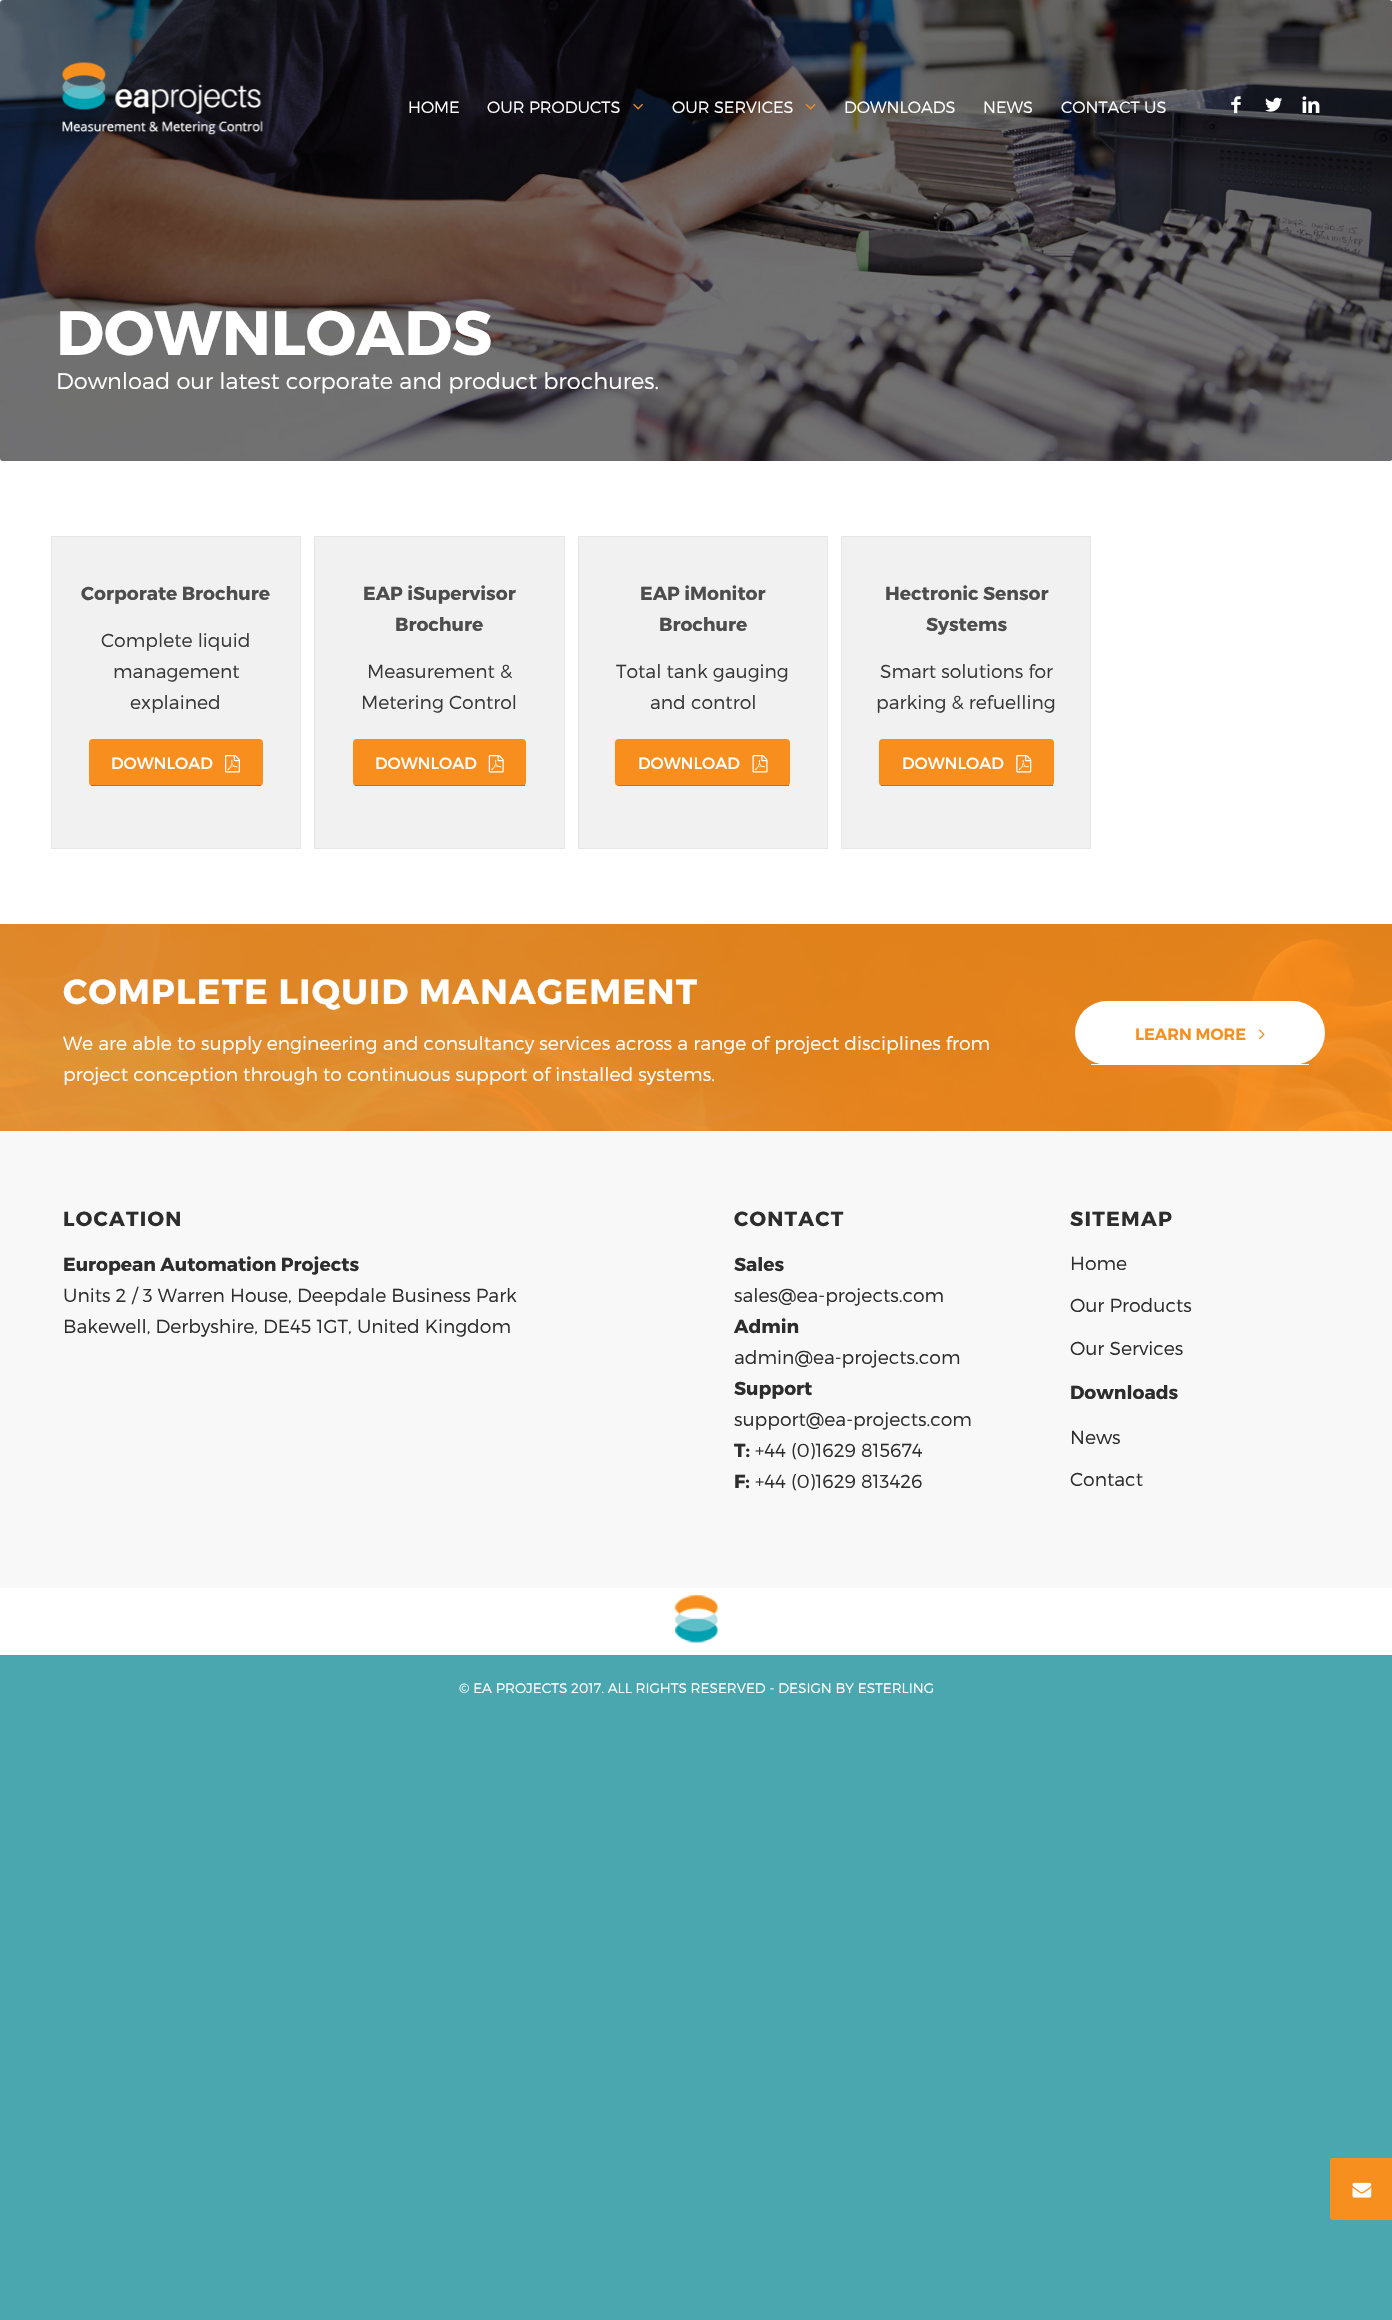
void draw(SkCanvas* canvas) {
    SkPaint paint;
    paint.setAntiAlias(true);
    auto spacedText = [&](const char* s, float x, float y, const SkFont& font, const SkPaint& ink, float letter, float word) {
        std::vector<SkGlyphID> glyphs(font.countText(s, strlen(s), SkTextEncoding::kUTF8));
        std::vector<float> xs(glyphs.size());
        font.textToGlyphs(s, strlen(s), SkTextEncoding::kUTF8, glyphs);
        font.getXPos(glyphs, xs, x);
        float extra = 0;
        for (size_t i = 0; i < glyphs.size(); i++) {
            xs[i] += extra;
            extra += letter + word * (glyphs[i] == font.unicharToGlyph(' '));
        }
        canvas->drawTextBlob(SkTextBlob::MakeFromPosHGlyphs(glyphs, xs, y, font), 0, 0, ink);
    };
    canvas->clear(0xFF4AA7AF);
    paint.setColor(0xFFE6E6E6);
    canvas->drawRect(SkRect::MakeXYWH(0, 0, 1392, 461), paint);
    canvas->drawImageRect(SkImages::DeferredFromEncodedData(SkData::MakeFromFileName("img7.png")), SkRect::MakeXYWH(0, 0, 1392, 461), SkSamplingOptions());
    canvas->drawImageRect(SkImages::DeferredFromEncodedData(SkData::MakeFromFileName("img1.png")), SkRect::MakeXYWH(62, 62, 201, 73), SkSamplingOptions());
    SkFont font1(fontMgr->matchFamilyStyle("Montserrat", SkFontStyle(300, SkFontStyle::kNormal_Width, SkFontStyle::kUpright_Slant)), 16.25f);
    font1.setSubpixel(true);
    paint.setColor(0xFFFFFFFF);
    canvas->drawString("HOME", 408, 113, font1, paint);
    canvas->drawString("OUR PRODUCTS", 487, 113, font1, paint);
    canvas->drawImageRect(SkImages::DeferredFromEncodedData(SkData::MakeFromFileName("img2.png")), SkRect::MakeXYWH(633, 103, 10, 7), SkSamplingOptions());
    canvas->drawString("OUR SERVICES", 672, 113, font1, paint);
    canvas->drawImageRect(SkImages::DeferredFromEncodedData(SkData::MakeFromFileName("img3.png")), SkRect::MakeXYWH(805, 103, 11, 7), SkSamplingOptions());
    canvas->drawString("DOWNLOADS", 844, 113, font1, paint);
    canvas->drawString("NEWS", 983, 113, font1, paint);
    canvas->drawString("CONTACT US", 1061, 113, font1, paint);
    canvas->drawImageRect(SkImages::DeferredFromEncodedData(SkData::MakeFromFileName("img4.png")), SkRect::MakeXYWH(1231, 96, 10, 18), SkSamplingOptions());
    canvas->drawImageRect(SkImages::DeferredFromEncodedData(SkData::MakeFromFileName("img5.png")), SkRect::MakeXYWH(1265, 97, 18, 15), SkSamplingOptions());
    canvas->drawImageRect(SkImages::DeferredFromEncodedData(SkData::MakeFromFileName("img6.png")), SkRect::MakeXYWH(1302, 96, 18, 17), SkSamplingOptions());
    SkFont font2(fontMgr->matchFamilyStyle("Montserrat", SkFontStyle::Bold()), 62.5f);
    font2.setSubpixel(true);
    canvas->drawString("DOWNLOADS", 56, 355, font2, paint);
    SkFont font3(fontMgr->matchFamilyStyle("Montserrat", SkFontStyle(300, SkFontStyle::kNormal_Width, SkFontStyle::kUpright_Slant)), 22.5f);
    font3.setSubpixel(true);
    canvas->drawString("Download our latest corporate and product brochures.", 56, 389, font3, paint);
    canvas->drawRect(SkRect::MakeXYWH(0, 461, 1392, 463), paint);
    paint.setColor(0xFFF1F1F1);
    canvas->drawRect(SkRect::MakeXYWH(51.5f, 536.5f, 249, 312), paint);
    paint.setStyle(SkPaint::kStroke_Style);
    paint.setStrokeWidth(1);
    paint.setColor(0xFFE6E6E6);
    canvas->drawRect(SkRect::MakeXYWH(51.5f, 536.5f, 249, 312), paint);
    SkFont font4(fontMgr->matchFamilyStyle("Montserrat", SkFontStyle::Bold()), 18.75f);
    font4.setSubpixel(true);
    paint.setStyle(SkPaint::kFill_Style);
    paint.setColor(0xFF4D4D4D);
    canvas->drawString("Corporate Brochure", 81, 600, font4, paint);
    SkFont font5(fontMgr->matchFamilyStyle("Montserrat", SkFontStyle(300, SkFontStyle::kNormal_Width, SkFontStyle::kUpright_Slant)), 18.75f);
    font5.setSubpixel(true);
    paint.setColor(0xFF383838);
    canvas->drawString("Complete liquid", 101, 647, font5, paint);
    canvas->drawString("management", 113, 678, font5, paint);
    canvas->drawString("explained", 130, 709, font5, paint);
    paint.setColor(0xFFF78E1E);
    canvas->drawRoundRect(SkRect::MakeXYWH(89, 739, 174, 47), 4, 4, paint);
    paint.setColor(0xFFD56C0C);
    canvas->drawRect(SkRect::MakeXYWH(91, 785, 170, 1), paint);
    SkFont font6(fontMgr->matchFamilyStyle("Montserrat", SkFontStyle::Normal()), 16.25f);
    font6.setSubpixel(true);
    paint.setColor(0xFFFFFFFF);
    canvas->drawString("DOWNLOAD", 111, 769, font6, paint);
    canvas->drawImageRect(SkImages::DeferredFromEncodedData(SkData::MakeFromFileName("img8.png")), SkRect::MakeXYWH(225, 755, 15, 18), SkSamplingOptions());
    paint.setColor(0xFFF1F1F1);
    canvas->drawRect(SkRect::MakeXYWH(314.5f, 536.5f, 250, 312), paint);
    paint.setStyle(SkPaint::kStroke_Style);
    paint.setColor(0xFFE6E6E6);
    canvas->drawRect(SkRect::MakeXYWH(314.5f, 536.5f, 250, 312), paint);
    paint.setStyle(SkPaint::kFill_Style);
    paint.setColor(0xFF4D4D4D);
    canvas->drawString("EAP iSupervisor", 363, 600, font4, paint);
    canvas->drawString("Brochure", 395, 631, font4, paint);
    paint.setColor(0xFF383838);
    canvas->drawString("Measurement &", 367, 678, font5, paint);
    canvas->drawString("Metering Control", 361, 709, font5, paint);
    paint.setColor(0xFFF78E1E);
    canvas->drawRoundRect(SkRect::MakeXYWH(353, 739, 173, 47), 4, 4, paint);
    paint.setColor(0xFFD56C0C);
    canvas->drawRect(SkRect::MakeXYWH(355, 785, 170, 1), paint);
    paint.setColor(0xFFFFFFFF);
    canvas->drawString("DOWNLOAD", 375, 769, font6, paint);
    canvas->drawImageRect(SkImages::DeferredFromEncodedData(SkData::MakeFromFileName("img9.png")), SkRect::MakeXYWH(488, 755, 16, 18), SkSamplingOptions());
    paint.setColor(0xFFF1F1F1);
    canvas->drawRect(SkRect::MakeXYWH(578.5f, 536.5f, 249, 312), paint);
    paint.setStyle(SkPaint::kStroke_Style);
    paint.setColor(0xFFE6E6E6);
    canvas->drawRect(SkRect::MakeXYWH(578.5f, 536.5f, 249, 312), paint);
    paint.setStyle(SkPaint::kFill_Style);
    paint.setColor(0xFF4D4D4D);
    canvas->drawString("EAP iMonitor", 640, 600, font4, paint);
    canvas->drawString("Brochure", 659, 631, font4, paint);
    paint.setColor(0xFF383838);
    canvas->drawString("Total tank gauging", 616, 678, font5, paint);
    canvas->drawString("and control", 650, 709, font5, paint);
    paint.setColor(0xFFF78E1E);
    canvas->drawRoundRect(SkRect::MakeXYWH(615, 739, 175, 47), 4, 4, paint);
    paint.setColor(0xFFD56C0C);
    canvas->drawRect(SkRect::MakeXYWH(618, 785, 171, 1), paint);
    paint.setColor(0xFFFFFFFF);
    canvas->drawString("DOWNLOAD", 638, 769, font6, paint);
    canvas->drawImageRect(SkImages::DeferredFromEncodedData(SkData::MakeFromFileName("img10.png")), SkRect::MakeXYWH(752, 755, 16, 18), SkSamplingOptions());
    paint.setColor(0xFFF1F1F1);
    canvas->drawRect(SkRect::MakeXYWH(841.5f, 536.5f, 249, 312), paint);
    paint.setStyle(SkPaint::kStroke_Style);
    paint.setColor(0xFFE6E6E6);
    canvas->drawRect(SkRect::MakeXYWH(841.5f, 536.5f, 249, 312), paint);
    paint.setStyle(SkPaint::kFill_Style);
    paint.setColor(0xFF4D4D4D);
    canvas->drawString("Hectronic Sensor", 885, 600, font4, paint);
    canvas->drawString("Systems", 926, 631, font4, paint);
    paint.setColor(0xFF383838);
    canvas->drawString("Smart solutions for", 880, 678, font5, paint);
    canvas->drawString("parking & refuelling", 876, 709, font5, paint);
    paint.setColor(0xFFF78E1E);
    canvas->drawRoundRect(SkRect::MakeXYWH(879, 739, 175, 47), 4, 4, paint);
    paint.setColor(0xFFD56C0C);
    canvas->drawRect(SkRect::MakeXYWH(881, 785, 172, 1), paint);
    paint.setColor(0xFFFFFFFF);
    canvas->drawString("DOWNLOAD", 902, 769, font6, paint);
    canvas->drawImageRect(SkImages::DeferredFromEncodedData(SkData::MakeFromFileName("img11.png")), SkRect::MakeXYWH(1016, 755, 16, 18), SkSamplingOptions());
    canvas->drawImageRect(SkImages::DeferredFromEncodedData(SkData::MakeFromFileName("img12.png")), SkRect::MakeXYWH(0, 924, 1392, 207), SkSamplingOptions());
    SkFont font7(fontMgr->matchFamilyStyle("Montserrat", SkFontStyle::Bold()), 35);
    font7.setSubpixel(true);
    spacedText("COMPLETE LIQUID MANAGEMENT", 63, 1004, font7, paint, 1.25f, 0);
    canvas->drawString("We are able to supply engineering and consultancy services across a range of project disciplines from", 63, 1050, font5, paint);
    canvas->drawString("project conception through to continuous support of installed systems.", 63, 1081, font5, paint);
    canvas->drawRoundRect(SkRect::MakeXYWH(1075, 1001, 250, 64), 32, 32, paint);
    canvas->drawRect(SkRect::MakeXYWH(1091, 1064, 218, 1), paint);
    SkFont font8(fontMgr->matchFamilyStyle("Montserrat", SkFontStyle(600, SkFontStyle::kNormal_Width, SkFontStyle::kUpright_Slant)), 16.25f);
    font8.setSubpixel(true);
    paint.setColor(0xFFF78F1E);
    canvas->drawString("LEARN MORE", 1135, 1040, font8, paint);
    canvas->drawImageRect(SkImages::DeferredFromEncodedData(SkData::MakeFromFileName("img13.png")), SkRect::MakeXYWH(1258, 1029, 7, 11), SkSamplingOptions());
    paint.setColor(0xFFF8F8F8);
    canvas->drawRect(SkRect::MakeXYWH(0, 1131, 1392, 457), paint);
    SkFont font9(fontMgr->matchFamilyStyle("Montserrat", SkFontStyle::Bold()), 20.5f);
    font9.setSubpixel(true);
    paint.setColor(0xFF2D2D2D);
    spacedText("LOCATION", 63, 1226, font9, paint, 1.25f, 0);
    canvas->drawString("European Automation Projects", 63, 1271, font4, paint);
    canvas->drawString("Units 2 / 3 Warren House, Deepdale Business Park", 63, 1302, font5, paint);
    canvas->drawString("Bakewell, Derbyshire, DE45 1GT, United Kingdom", 63, 1333, font5, paint);
    spacedText("CONTACT", 734, 1226, font9, paint, 1.25f, 0);
    canvas->drawString("Sales", 734, 1271, font4, paint);
    canvas->drawString("sales@ea-projects.com", 734, 1302, font5, paint);
    canvas->drawString("Admin", 734, 1333, font4, paint);
    canvas->drawString("admin@ea-projects.com", 734, 1364, font5, paint);
    canvas->drawString("Support", 734, 1395, font4, paint);
    canvas->drawString("support@ea-projects.com", 734, 1426, font5, paint);
    canvas->drawString("T:", 734, 1457, font4, paint);
    canvas->drawString("+44 (0)1629 815674", 755, 1457, font5, paint);
    canvas->drawString("F:", 734, 1488, font4, paint);
    canvas->drawString("+44 (0)1629 813426", 755, 1488, font5, paint);
    spacedText("SITEMAP", 1070, 1226, font9, paint, 1.25f, 0);
    canvas->drawString("Home", 1070, 1270, font5, paint);
    canvas->drawString("Our Products", 1070, 1312, font5, paint);
    canvas->drawString("Our Services", 1070, 1355, font5, paint);
    canvas->drawString("Downloads", 1070, 1399, font4, paint);
    canvas->drawString("News", 1070, 1444, font5, paint);
    canvas->drawString("Contact", 1070, 1486, font5, paint);
    paint.setColor(0xFFFFFFFF);
    canvas->drawRect(SkRect::MakeXYWH(0, 1588, 1392, 67), paint);
    canvas->drawImageRect(SkImages::DeferredFromEncodedData(SkData::MakeFromFileName("img14.png")), SkRect::MakeXYWH(674, 1594, 44, 49), SkSamplingOptions());
    SkFont font10(fontMgr->matchFamilyStyle("Montserrat", SkFontStyle(300, SkFontStyle::kNormal_Width, SkFontStyle::kUpright_Slant)), 13.75f);
    font10.setSubpixel(true);
    canvas->drawString("© EA PROJECTS 2017. ALL RIGHTS RESERVED - DESIGN BY ESTERLING", 459, 1693, font10, paint);
    paint.setColor(0xFFF78F1E);
    canvas->drawRoundRect(SkRect::MakeXYWH(1330, 2158, 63, 62), 2.5f, 2.5f, paint);
    canvas->drawImageRect(SkImages::DeferredFromEncodedData(SkData::MakeFromFileName("img15.png")), SkRect::MakeXYWH(1352, 2182, 20, 16), SkSamplingOptions());
}
